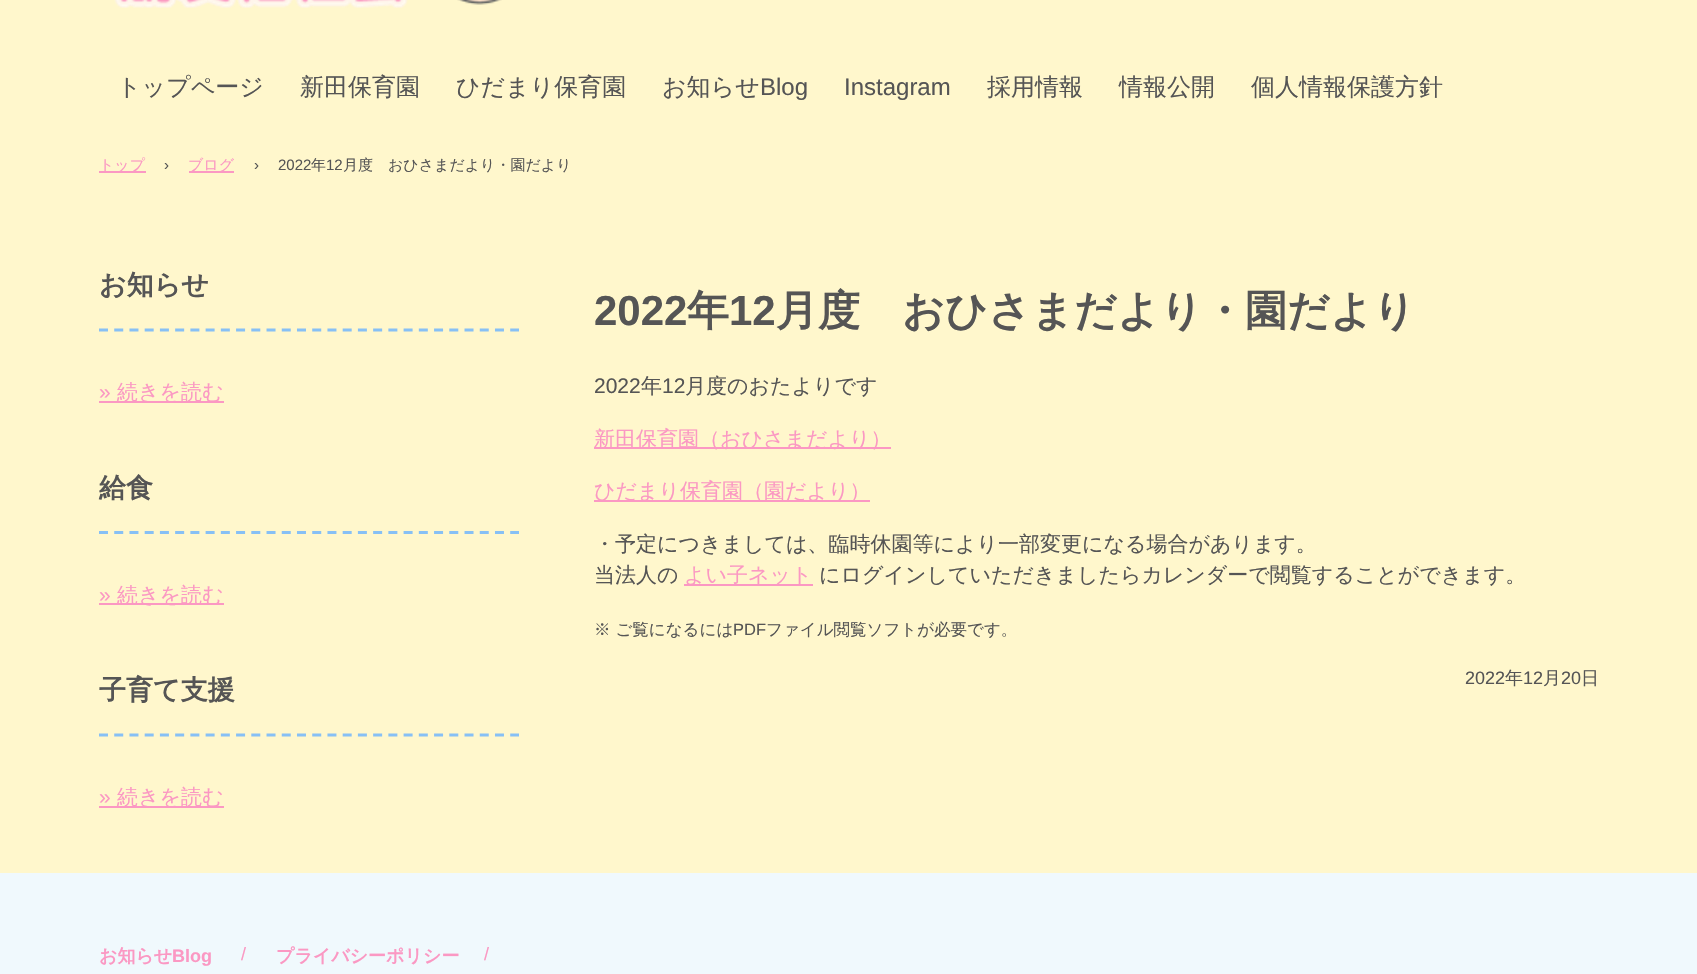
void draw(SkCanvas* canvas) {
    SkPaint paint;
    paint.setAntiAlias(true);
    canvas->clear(0xFFFFF7CC);
    canvas->drawImageRect(SkImages::DeferredFromEncodedData(SkData::MakeFromFileName("img1.png")), SkRect::MakeXYWH(114, 0, 388, 8), SkSamplingOptions());
    SkFont font1(fontMgr->matchFamilyStyle("WenQuanYi Zen Hei", SkFontStyle(500, SkFontStyle::kNormal_Width, SkFontStyle::kUpright_Slant)), 24);
    font1.setSubpixel(true);
    paint.setColor(0xFF555555);
    canvas->drawString("トップページ", 117, 95, font1, paint);
    canvas->drawString("新田保育園", 300, 95, font1, paint);
    canvas->drawString("ひだまり保育園", 456, 95, font1, paint);
    canvas->drawString("お知らせ", 662, 95, font1, paint);
    SkFont font2(fontMgr->matchFamilyStyle("Liberation Sans", SkFontStyle::Normal()), 24);
    font2.setSubpixel(true);
    canvas->drawString("Blog", 760, 95, font2, paint);
    canvas->drawString("Instagram", 844, 95, font2, paint);
    canvas->drawString("採用情報", 987, 95, font1, paint);
    canvas->drawString("情報公開", 1119, 95, font1, paint);
    canvas->drawString("個人情報保護方針", 1251, 95, font1, paint);
    paint.setColor(0xFFFB98C3);
    canvas->drawRect(SkRect::MakeXYWH(99, 171, 47, 2), paint);
    SkFont font3(fontMgr->matchFamilyStyle("WenQuanYi Zen Hei", SkFontStyle(500, SkFontStyle::kNormal_Width, SkFontStyle::kUpright_Slant)), 15);
    font3.setSubpixel(true);
    canvas->drawString("トップ", 99, 170, font3, paint);
    SkFont font4(fontMgr->matchFamilyStyle("Liberation Sans", SkFontStyle::Normal()), 15);
    font4.setSubpixel(true);
    paint.setColor(0xFF555555);
    canvas->drawString("›", 164, 170, font4, paint);
    paint.setColor(0xFFFB98C3);
    canvas->drawRect(SkRect::MakeXYWH(189, 171, 45, 2), paint);
    canvas->drawString("ブログ", 188, 170, font3, paint);
    paint.setColor(0xFF555555);
    canvas->drawString("›", 254, 170, font4, paint);
    canvas->drawString("2022", 278, 170, font4, paint);
    canvas->drawString("年", 311, 170, font3, paint);
    canvas->drawString("12", 326, 170, font4, paint);
    canvas->drawString("月度　おひさまだより・園だより", 343, 170, font3, paint);
    paint.setStyle(SkPaint::kStroke_Style);
    paint.setStrokeWidth(3);
    paint.setColor(0xFF87C0F5);
    paint.setPathEffect(SkDashPathEffect::Make({{9, 6.23f}}, 0));
    canvas->drawPath(SkPathBuilder().moveTo(99, 330).lineTo(519, 330).detach(), paint);
    paint.setPathEffect(nullptr);
    SkFont font5(fontMgr->matchFamilyStyle("WenQuanYi Zen Hei", SkFontStyle::Bold()), 27);
    font5.setSubpixel(true);
    paint.setStyle(SkPaint::kFill_Style);
    paint.setColor(0xFF555555);
    canvas->drawString("お知らせ", 99, 294, font5, paint);
    SkFont font6(fontMgr->matchFamilyStyle("Liberation Sans", SkFontStyle::Normal()), 21);
    font6.setSubpixel(true);
    paint.setColor(0xFFFB98C3);
    canvas->drawString("»", 99, 399, font6, paint);
    canvas->drawRect(SkRect::MakeXYWH(99, 401, 125, 2), paint);
    SkFont font7(fontMgr->matchFamilyStyle("WenQuanYi Zen Hei", SkFontStyle(500, SkFontStyle::kNormal_Width, SkFontStyle::kUpright_Slant)), 21);
    font7.setSubpixel(true);
    canvas->drawString("続きを読む", 117, 399, font7, paint);
    paint.setStyle(SkPaint::kStroke_Style);
    paint.setColor(0xFF87C0F5);
    paint.setPathEffect(SkDashPathEffect::Make({{9, 6.23f}}, 0));
    canvas->drawPath(SkPathBuilder().moveTo(99, 532.5f).lineTo(519, 532.5f).detach(), paint);
    paint.setPathEffect(nullptr);
    paint.setStyle(SkPaint::kFill_Style);
    paint.setColor(0xFF555555);
    canvas->drawString("給食", 99, 497, font5, paint);
    paint.setColor(0xFFFB98C3);
    canvas->drawString("»", 99, 602, font6, paint);
    canvas->drawRect(SkRect::MakeXYWH(99, 603, 125, 2), paint);
    canvas->drawString("続きを読む", 117, 602, font7, paint);
    paint.setStyle(SkPaint::kStroke_Style);
    paint.setColor(0xFF87C0F5);
    paint.setPathEffect(SkDashPathEffect::Make({{9, 6.23f}}, 0));
    canvas->drawPath(SkPathBuilder().moveTo(99, 735).lineTo(519, 735).detach(), paint);
    paint.setPathEffect(nullptr);
    paint.setStyle(SkPaint::kFill_Style);
    paint.setColor(0xFF555555);
    canvas->drawString("子育て支援", 99, 699, font5, paint);
    paint.setColor(0xFFFB98C3);
    canvas->drawString("»", 99, 804, font6, paint);
    canvas->drawRect(SkRect::MakeXYWH(99, 806, 125, 2), paint);
    canvas->drawString("続きを読む", 117, 804, font7, paint);
    SkFont font8(fontMgr->matchFamilyStyle("Liberation Sans", SkFontStyle::Bold()), 42);
    font8.setSubpixel(true);
    paint.setColor(0xFF555555);
    canvas->drawString("2022", 594, 325, font8, paint);
    SkFont font9(fontMgr->matchFamilyStyle("WenQuanYi Zen Hei", SkFontStyle::Bold()), 42);
    font9.setSubpixel(true);
    canvas->drawString("年", 687, 325, font9, paint);
    canvas->drawString("12", 729, 325, font8, paint);
    canvas->drawString("月度　おひさまだより・園だより", 776, 325, font9, paint);
    canvas->drawString("2022", 594, 393, font6, paint);
    canvas->drawString("年", 641, 393, font7, paint);
    canvas->drawString("12", 662, 393, font6, paint);
    canvas->drawString("月度のおたよりです", 685, 393, font7, paint);
    paint.setColor(0xFFFB98C3);
    canvas->drawRect(SkRect::MakeXYWH(594, 447, 297, 2), paint);
    canvas->drawString("新田保育園（おひさまだより）", 594, 446, font7, paint);
    canvas->drawRect(SkRect::MakeXYWH(594, 500, 276, 2), paint);
    canvas->drawString("ひだまり保育園（園だより）", 594, 498, font7, paint);
    paint.setColor(0xFF555555);
    canvas->drawString("・予定につきましては、臨時休園等により一部変更になる場合があります。", 594, 551, font7, paint);
    canvas->drawString("当法人の", 594, 582, font7, paint);
    paint.setColor(0xFFFB98C3);
    canvas->drawRect(SkRect::MakeXYWH(684, 584, 129, 2), paint);
    canvas->drawString("よい子ネット", 684, 582, font7, paint);
    paint.setColor(0xFF555555);
    canvas->drawString("にログインしていただきましたらカレンダーで閲覧することができます。", 819, 582, font7, paint);
    SkFont font10(fontMgr->matchFamilyStyle("WenQuanYi Zen Hei", SkFontStyle(500, SkFontStyle::kNormal_Width, SkFontStyle::kUpright_Slant)), 16.5f);
    font10.setSubpixel(true);
    canvas->drawString("※ ご覧になるには", 594, 635, font10, paint);
    SkFont font11(fontMgr->matchFamilyStyle("Liberation Sans", SkFontStyle::Normal()), 16.5f);
    font11.setSubpixel(true);
    canvas->drawString("PDF", 733, 635, font11, paint);
    canvas->drawString("ファイル閲覧ソフトが必要です。", 766, 635, font10, paint);
    SkFont font12(fontMgr->matchFamilyStyle("Liberation Sans", SkFontStyle::Normal()), 18);
    font12.setSubpixel(true);
    canvas->drawString("2022", 1465, 684, font12, paint);
    SkFont font13(fontMgr->matchFamilyStyle("WenQuanYi Zen Hei", SkFontStyle(500, SkFontStyle::kNormal_Width, SkFontStyle::kUpright_Slant)), 18);
    font13.setSubpixel(true);
    canvas->drawString("年", 1505, 684, font13, paint);
    canvas->drawString("12", 1523, 684, font12, paint);
    canvas->drawString("月", 1543, 684, font13, paint);
    canvas->drawString("20", 1561, 684, font12, paint);
    canvas->drawString("日", 1581, 684, font13, paint);
    paint.setColor(0xFFF0F9FD);
    canvas->drawRect(SkRect::MakeXYWH(0, 873, 1697, 101), paint);
    SkFont font14(fontMgr->matchFamilyStyle("WenQuanYi Zen Hei", SkFontStyle::Bold()), 18);
    font14.setSubpixel(true);
    paint.setColor(0xFFFB98C3);
    canvas->drawString("お知らせ", 99, 962, font14, paint);
    SkFont font15(fontMgr->matchFamilyStyle("Liberation Sans", SkFontStyle::Bold()), 18);
    font15.setSubpixel(true);
    canvas->drawString("Blog", 172, 962, font15, paint);
    canvas->drawString("/", 241, 960, font12, paint);
    canvas->drawString("プライバシーポリシー", 276, 962, font14, paint);
    canvas->drawString("/", 484, 960, font12, paint);
}
